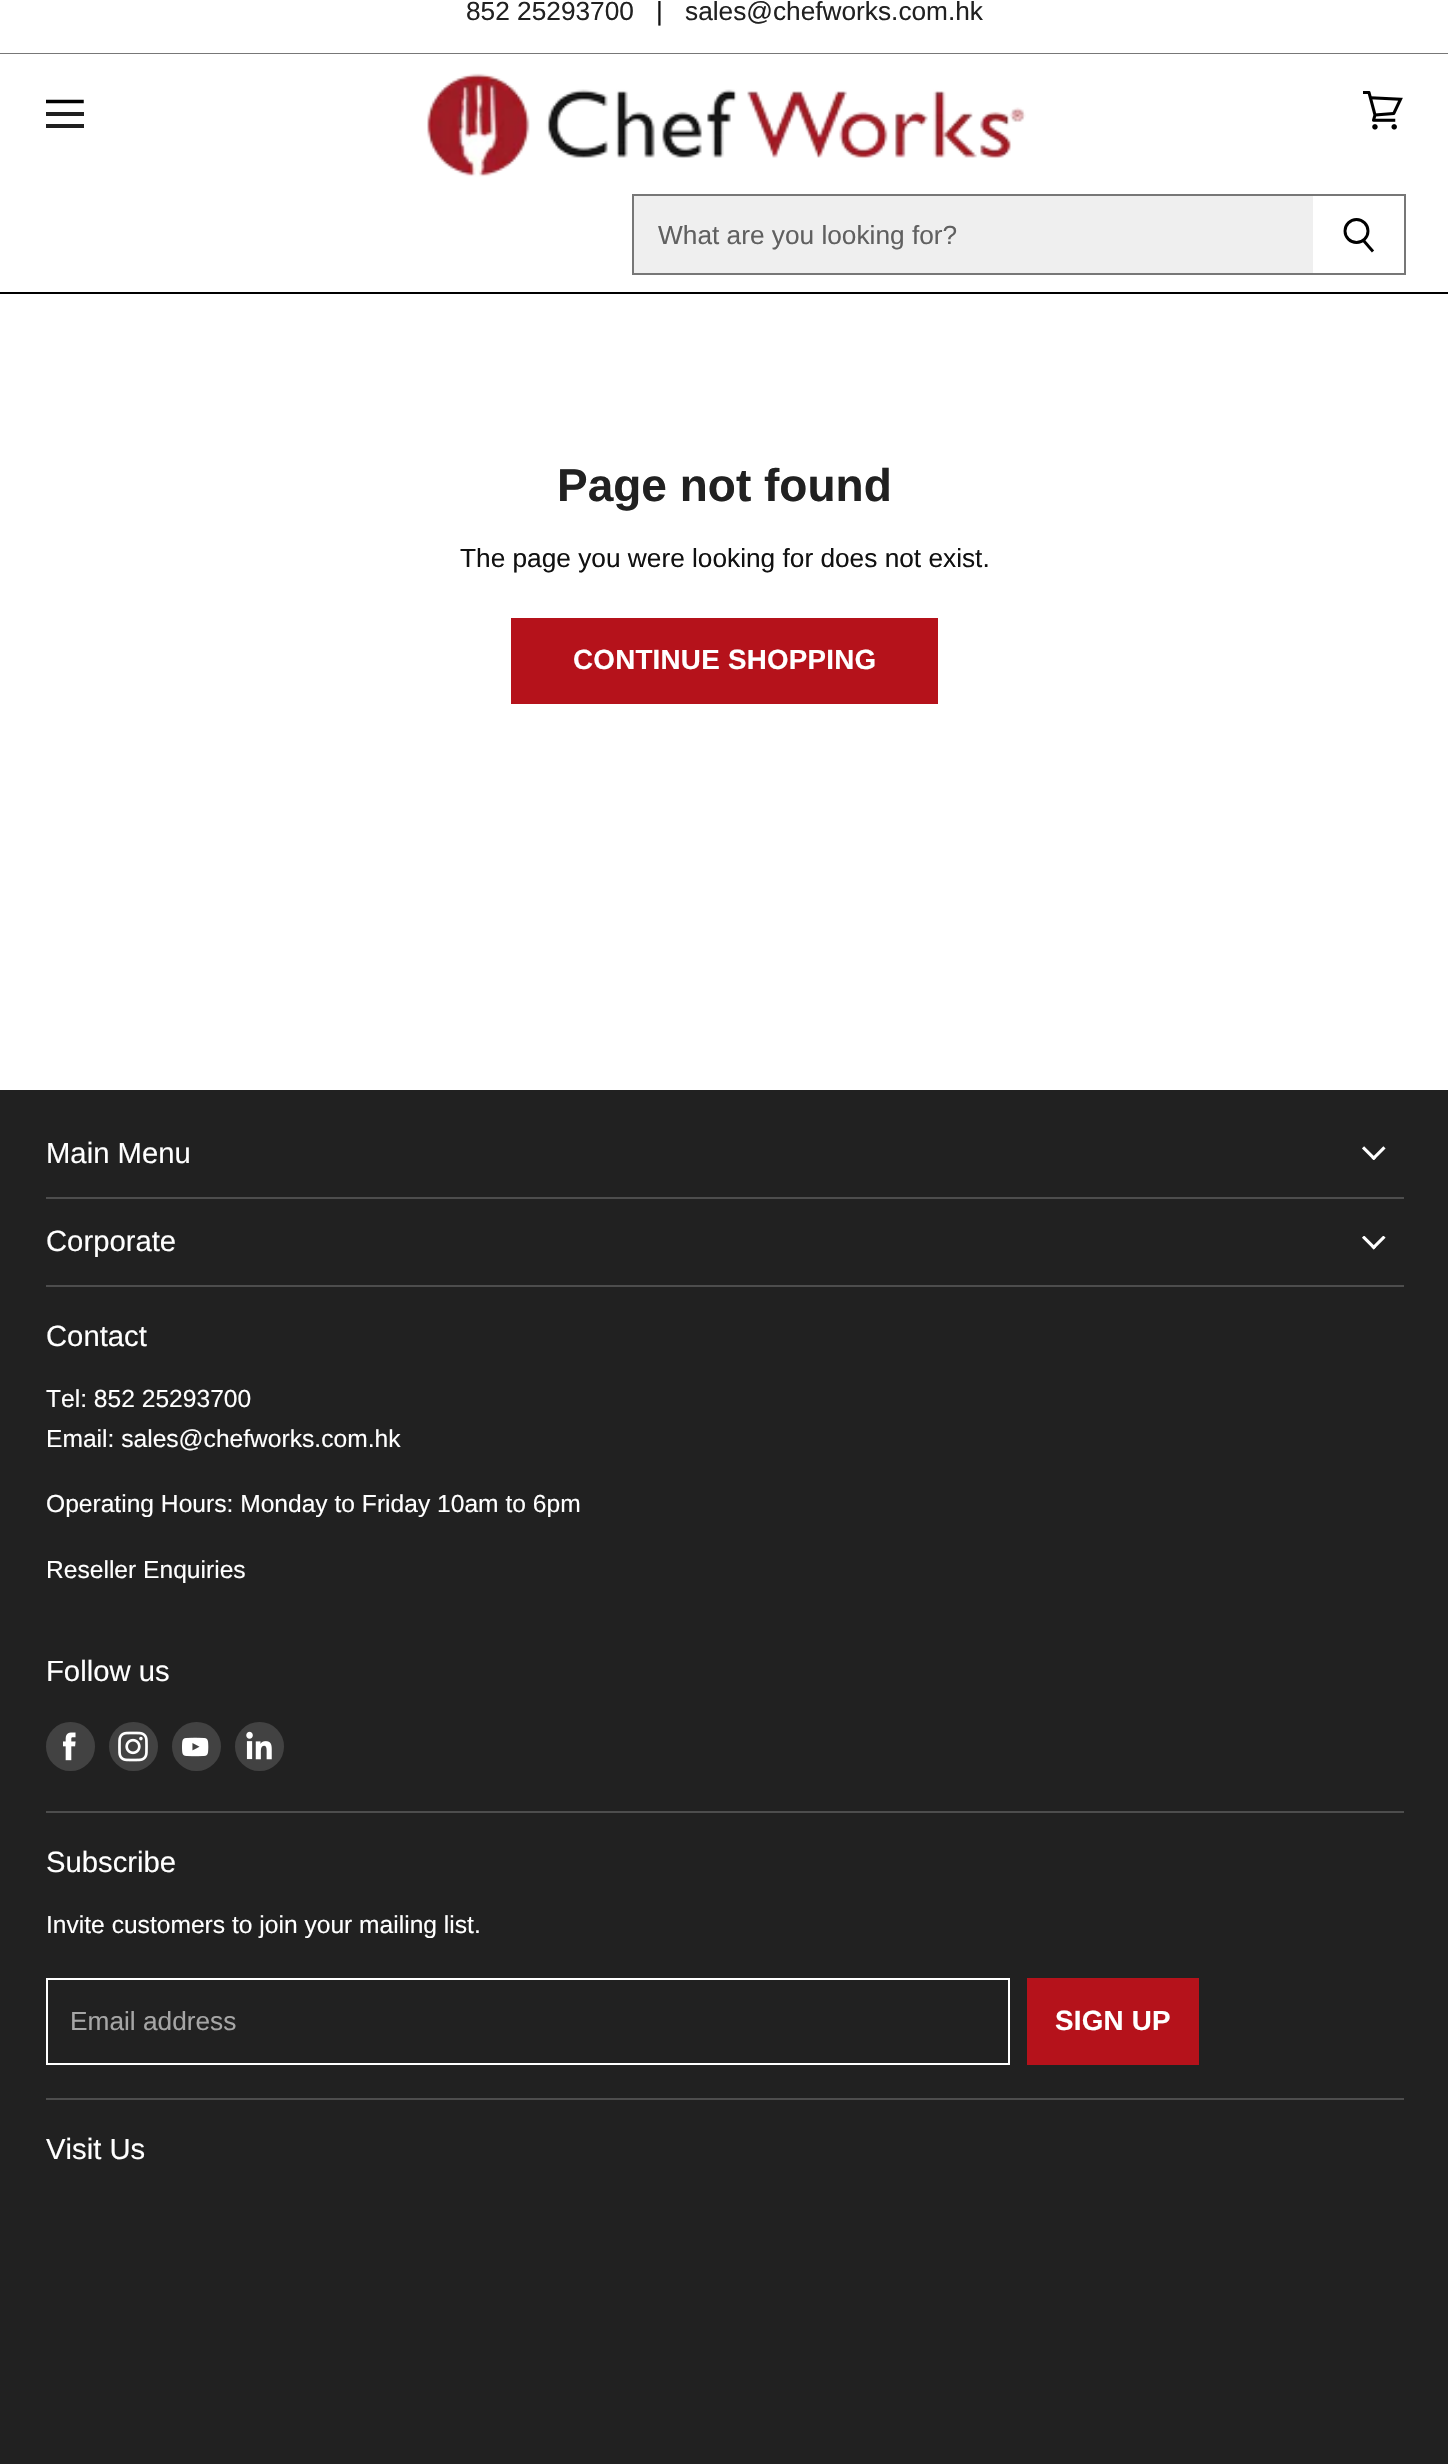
void draw(SkCanvas* canvas) {
    SkPaint paint;
    paint.setAntiAlias(true);
    auto spacedText = [&](const char* s, float x, float y, const SkFont& font, const SkPaint& ink, float letter, float word) {
        std::vector<SkGlyphID> glyphs(font.countText(s, strlen(s), SkTextEncoding::kUTF8));
        std::vector<float> xs(glyphs.size());
        font.textToGlyphs(s, strlen(s), SkTextEncoding::kUTF8, glyphs);
        font.getXPos(glyphs, xs, x);
        float extra = 0;
        for (size_t i = 0; i < glyphs.size(); i++) {
            xs[i] += extra;
            extra += letter + word * (glyphs[i] == font.unicharToGlyph(' '));
        }
        canvas->drawTextBlob(SkTextBlob::MakeFromPosHGlyphs(glyphs, xs, y, font), 0, 0, ink);
    };
    canvas->clear(0xFFFFFFFF);
    paint.setColor(0xFF777777);
    canvas->drawRect(SkRect::MakeXYWH(0, 53, 1448, 1), paint);
    SkFont font1(fontMgr->matchFamilyStyle("Liberation Sans", SkFontStyle::Normal()), 26.25f);
    font1.setSubpixel(true);
    paint.setColor(0xFF212121);
    canvas->drawString("852 25293700", 466, 20, font1, paint);
    paint.setColor(0xFF111111);
    canvas->drawString("|", 656, 20, font1, paint);
    paint.setColor(0xFF212121);
    canvas->drawString("sales@chefworks.com.hk", 685, 20, font1, paint);
    paint.setColor(0xFF000000);
    canvas->drawRect(SkRect::MakeXYWH(0, 292, 1448, 2), paint);
    canvas->save();
    canvas->clipRect(SkRect::MakeXYWH(46, 98, 38, 32));
    paint.setStyle(SkPaint::kStroke_Style);
    paint.setStrokeWidth(3.5f);
    paint.setStrokeCap(SkPaint::kSquare_Cap);
    paint.setStrokeJoin(SkPaint::kRound_Join);
    canvas->drawPath(SkPathBuilder().moveTo(82, 101.5f).lineTo(47, 101.5f).detach(), paint);
    canvas->restore();
    paint.setStyle(SkPaint::kFill_Style);
    paint.setColor(0xFF202020);
    canvas->drawRect(SkRect::MakeXYWH(46, 112, 38, 4), paint);
    canvas->drawRect(SkRect::MakeXYWH(46, 124, 38, 4), paint);
    canvas->drawImageRect(SkImages::DeferredFromEncodedData(SkData::MakeFromFileName("img1.png")), SkRect::MakeXYWH(1363, 91, 40, 39), SkSamplingOptions());
    canvas->drawImageRect(SkImages::DeferredFromEncodedData(SkData::MakeFromFileName("img2.png")), SkRect::MakeXYWH(427, 73, 599, 104), SkSamplingOptions());
    paint.setColor(0xFF777777);
    canvas->drawRect(SkRect::MakeXYWH(632, 194, 773, 2), paint);
    canvas->drawRect(SkRect::MakeXYWH(1404, 194, 2, 81), paint);
    canvas->drawRect(SkRect::MakeXYWH(632, 273, 773, 2), paint);
    paint.setStyle(SkPaint::kStroke_Style);
    paint.setStrokeWidth(2.9f);
    paint.setStrokeCap(SkPaint::kButt_Cap);
    paint.setStrokeJoin(SkPaint::kMiter_Join);
    paint.setColor(0xFF000000);
    canvas->drawPath(SkPathBuilder().moveTo(1373, 251.5f).lineTo(1363.5f, 240.5f).detach(), paint);
    canvas->drawCircle(1356.5f, 231, 11.5f, paint);
    paint.setStyle(SkPaint::kFill_Style);
    paint.setColor(0xFFEFEFEF);
    canvas->drawRect(SkRect::MakeXYWH(634, 196, 679, 77), paint);
    paint.setColor(0xFF777777);
    canvas->drawRect(SkRect::MakeXYWH(632, 194, 2, 81), paint);
    paint.setColor(0xFF606060);
    canvas->drawString("What are you looking for?", 658, 244, font1, paint);
    SkFont font2(fontMgr->matchFamilyStyle("Liberation Sans", SkFontStyle::Bold()), 46);
    font2.setSubpixel(true);
    paint.setColor(0xFF212121);
    canvas->drawString("Page not found", 557, 501, font2, paint);
    paint.setColor(0xFF111111);
    canvas->drawString("The page you were looking for does not exist.", 460, 567, font1, paint);
    paint.setColor(0xFFB5121B);
    canvas->drawRect(SkRect::MakeXYWH(511, 618, 427, 86), paint);
    SkFont font3(fontMgr->matchFamilyStyle("Liberation Sans", SkFontStyle::Bold()), 27.75f);
    font3.setSubpixel(true);
    paint.setColor(0xFFFFFFFF);
    spacedText("CONTINUE SHOPPING", 573, 669, font3, paint, 0.25f, 0);
    paint.setColor(0xFF212121);
    canvas->drawRect(SkRect::MakeXYWH(0, 1090, 1448, 1374), paint);
    paint.setColor(0xFF4D4D4D);
    canvas->drawRect(SkRect::MakeXYWH(46, 1197, 1358, 2), paint);
    SkFont font4(fontMgr->matchFamilyStyle("Liberation Sans", SkFontStyle::Normal()), 29.25f);
    font4.setSubpixel(true);
    paint.setColor(0xFFFFFFFF);
    canvas->drawString("Main Menu", 46, 1163, font4, paint);
    canvas->drawImageRect(SkImages::DeferredFromEncodedData(SkData::MakeFromFileName("img3.png")), SkRect::MakeXYWH(1362, 1146, 24, 14), SkSamplingOptions());
    paint.setColor(0xFF4D4D4D);
    canvas->drawRect(SkRect::MakeXYWH(46, 1285, 1358, 2), paint);
    paint.setColor(0xFFFFFFFF);
    canvas->drawString("Corporate", 46, 1251, font4, paint);
    canvas->drawImageRect(SkImages::DeferredFromEncodedData(SkData::MakeFromFileName("img4.png")), SkRect::MakeXYWH(1362, 1236, 24, 14), SkSamplingOptions());
    paint.setColor(0xFF4D4D4D);
    canvas->drawRect(SkRect::MakeXYWH(46, 1811, 1358, 2), paint);
    paint.setColor(0xFFFFFFFF);
    canvas->drawString("Contact", 46, 1346, font4, paint);
    SkFont font5(fontMgr->matchFamilyStyle("Liberation Sans", SkFontStyle::Normal()), 24.6f);
    font5.setSubpixel(true);
    canvas->drawString("Tel: 852 25293700", 46, 1407, font5, paint);
    canvas->drawString("Email: sales@chefworks.com.hk", 46, 1447, font5, paint);
    canvas->drawString("Operating Hours: Monday to Friday 10am to 6pm", 46, 1512, font5, paint);
    canvas->drawString("Reseller Enquiries", 46, 1578, font5, paint);
    canvas->drawString("Follow us", 46, 1681, font4, paint);
    paint.setColor(0xFF424242);
    canvas->drawCircle(70.5f, 1746.5f, 24.5f, paint);
    canvas->drawImageRect(SkImages::DeferredFromEncodedData(SkData::MakeFromFileName("img5.png")), SkRect::MakeXYWH(63, 1732, 13, 29), SkSamplingOptions());
    canvas->drawCircle(133.5f, 1746.5f, 24.5f, paint);
    canvas->drawImageRect(SkImages::DeferredFromEncodedData(SkData::MakeFromFileName("img6.png")), SkRect::MakeXYWH(118, 1731, 30, 31), SkSamplingOptions());
    canvas->drawCircle(196.5f, 1746.5f, 24.5f, paint);
    canvas->drawImageRect(SkImages::DeferredFromEncodedData(SkData::MakeFromFileName("img7.png")), SkRect::MakeXYWH(182, 1737, 27, 20), SkSamplingOptions());
    canvas->drawCircle(259.5f, 1746.5f, 24.5f, paint);
    canvas->drawImageRect(SkImages::DeferredFromEncodedData(SkData::MakeFromFileName("img8.png")), SkRect::MakeXYWH(246, 1731, 26, 29), SkSamplingOptions());
    paint.setColor(0xFF4D4D4D);
    canvas->drawRect(SkRect::MakeXYWH(46, 2098, 1358, 2), paint);
    paint.setColor(0xFFFFFFFF);
    canvas->drawString("Subscribe", 46, 1872, font4, paint);
    canvas->drawString("Invite customers to join your mailing list.", 46, 1933, font5, paint);
    paint.setStyle(SkPaint::kStroke_Style);
    paint.setStrokeWidth(2);
    canvas->drawRect(SkRect::MakeXYWH(47, 1979, 962, 85), paint);
    paint.setStyle(SkPaint::kFill_Style);
    paint.setColor(0xFFA6A6A6);
    canvas->drawString("Email address", 70, 2030, font1, paint);
    paint.setColor(0xFFB5121B);
    canvas->drawRect(SkRect::MakeXYWH(1027, 1978, 172, 87), paint);
    paint.setColor(0xFFFFFFFF);
    spacedText("SIGN UP", 1055, 2030, font3, paint, 0.25f, 0);
    canvas->drawString("Visit Us", 46, 2159, font4, paint);
}
